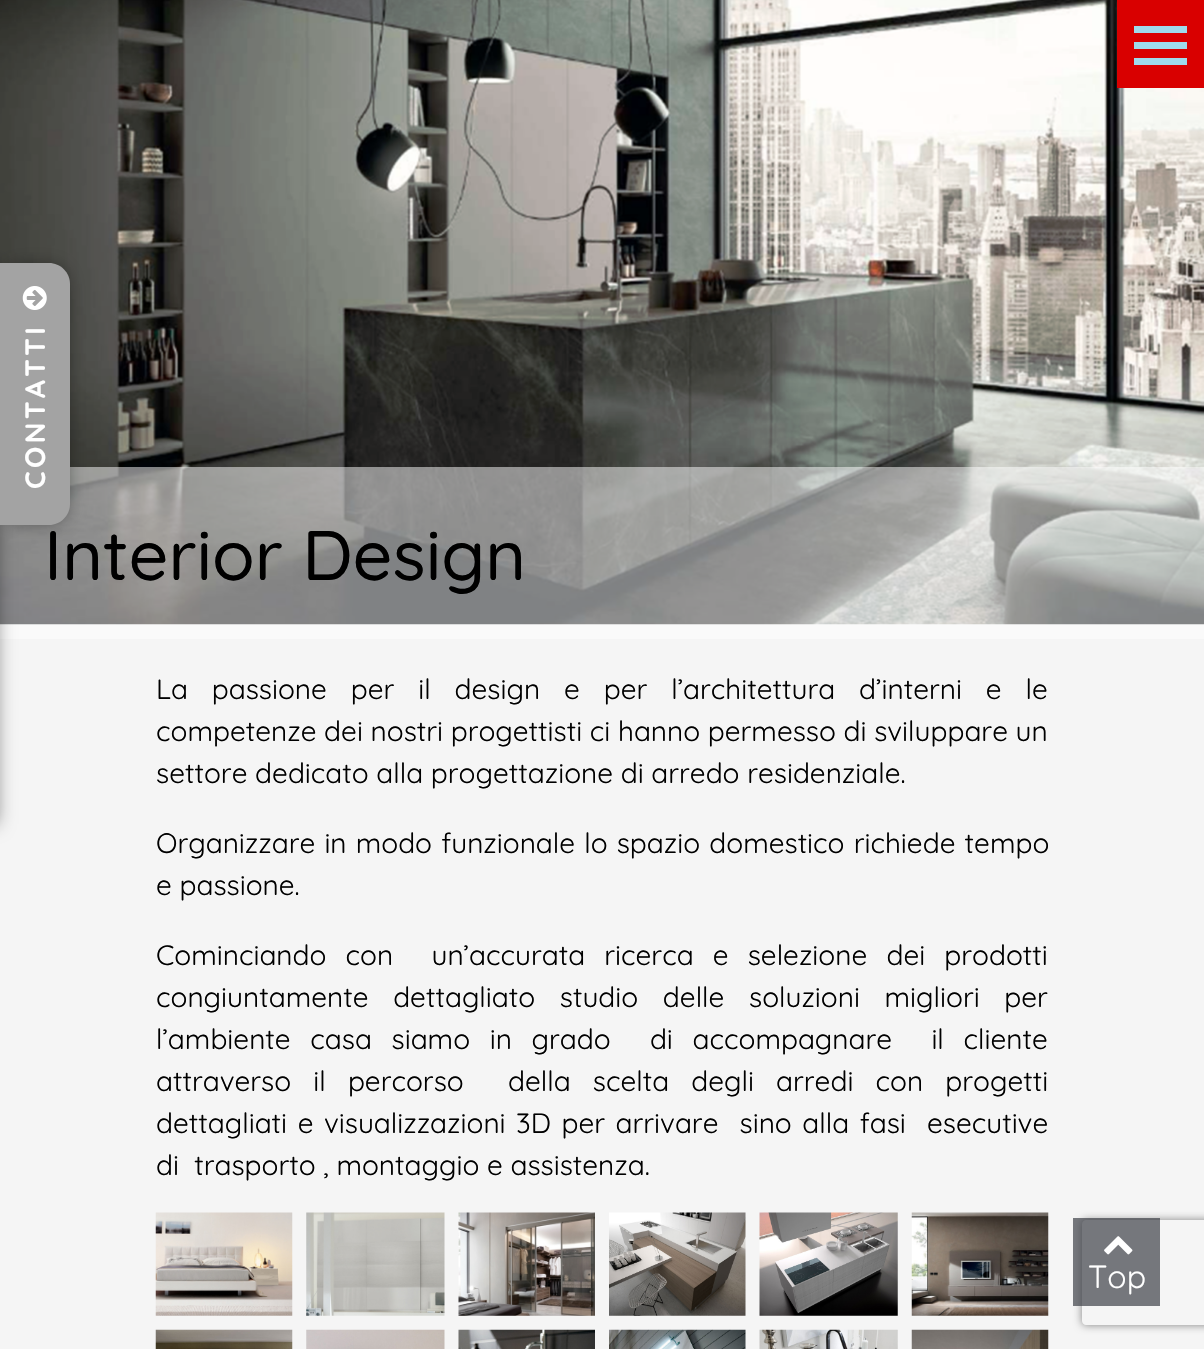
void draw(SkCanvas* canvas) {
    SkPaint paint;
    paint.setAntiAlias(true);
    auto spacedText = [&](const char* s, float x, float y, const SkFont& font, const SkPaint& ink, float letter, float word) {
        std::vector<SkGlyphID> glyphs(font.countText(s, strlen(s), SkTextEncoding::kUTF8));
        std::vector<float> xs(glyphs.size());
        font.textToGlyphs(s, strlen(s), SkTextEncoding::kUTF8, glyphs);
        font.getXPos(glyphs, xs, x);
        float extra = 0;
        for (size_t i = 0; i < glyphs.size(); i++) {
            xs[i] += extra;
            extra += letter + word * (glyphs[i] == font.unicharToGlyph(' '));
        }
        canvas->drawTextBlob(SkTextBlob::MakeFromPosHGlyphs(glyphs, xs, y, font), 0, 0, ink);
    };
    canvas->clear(0xFFF5F5F5);
    canvas->drawImageRect(SkImages::DeferredFromEncodedData(SkData::MakeFromFileName("img2.png")), SkRect::MakeXYWH(0, 0, 1204, 625), SkSamplingOptions());
    paint.setColor(0xFFD90000);
    canvas->drawRect(SkRect::MakeXYWH(1117, 0, 87, 88), paint);
    paint.setColor(0xFF9FDBEC);
    canvas->drawRect(SkRect::MakeXYWH(1134, 26, 53, 7), paint);
    canvas->drawRect(SkRect::MakeXYWH(1134, 42, 53, 7), paint);
    canvas->drawRect(SkRect::MakeXYWH(1134, 58, 53, 7), paint);
    paint.setColor(0x80FFFFFF);
    canvas->drawRect(SkRect::MakeXYWH(0, 467, 1204, 172), paint);
    paint.setColor(0x73000000);
    paint.setMaskFilter(SkMaskFilter::MakeBlur(kNormal_SkBlurStyle, 9));
    canvas->drawRect(SkRect::MakeXYWH(-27, 266, 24, 558), paint);
    paint.setMaskFilter(nullptr);
    paint.setMaskFilter(SkMaskFilter::MakeBlur(kNormal_SkBlurStyle, 9));
    canvas->drawRoundRect(SkRect::MakeXYWH(4, 266, 63, 256), 18, 18, paint);
    paint.setMaskFilter(nullptr);
    paint.setColor(0xFFA3A3A3);
    canvas->drawPath(SkPathBuilder().moveTo(0, 263).lineTo(49, 263).cubicTo(60.5f, 263, 70, 272.5f, 70, 284).lineTo(70, 504).cubicTo(70, 515.5f, 60.5f, 525, 49, 525).lineTo(0, 525).close().detach(), paint);
    canvas->drawImageRect(SkImages::DeferredFromEncodedData(SkData::MakeFromFileName("img1.png")), SkRect::MakeXYWH(22, 286, 25, 24), SkSamplingOptions());
    SkFont font1(fontMgr->matchFamilyStyle("Quicksand", SkFontStyle::Bold()), 28);
    font1.setSubpixel(true);
    paint.setColor(0xFFFFFFFF);
    canvas->save();
    canvas->rotate(-90, 45, 489);
    spacedText("CONTATTI", 45, 489, font1, paint, 3.5f, 0);
    canvas->restore();
    SkFont font2(fontMgr->matchFamilyStyle("Quicksand", SkFontStyle(500, SkFontStyle::kNormal_Width, SkFontStyle::kUpright_Slant)), 70);
    font2.setSubpixel(true);
    paint.setColor(0xFF000000);
    canvas->drawString("Interior Design", 44, 580, font2, paint);
    SkFont font3(fontMgr->matchFamilyStyle("Quicksand", SkFontStyle::Normal()), 28);
    font3.setSubpixel(true);
    spacedText("La passione per il design e per l’architettura d’interni e le", 156, 699, font3, paint, 0, 16.25f);
    canvas->drawString("competenze dei nostri progettisti ci hanno permesso di sviluppare un", 156, 741, font3, paint);
    canvas->drawString("settore dedicato alla progettazione di arredo residenziale.", 156, 783, font3, paint);
    spacedText("Organizzare in modo funzionale lo spazio domestico richiede tempo", 156, 853, font3, paint, 0, 1.5f);
    canvas->drawString("e passione.", 156, 895, font3, paint);
    spacedText("Cominciando con  un’accurata ricerca e selezione dei prodotti", 156, 965, font3, paint, 0, 11.5f);
    spacedText("congiuntamente dettagliato studio delle soluzioni migliori per", 156, 1007, font3, paint, 0, 17);
    spacedText("l’ambiente casa siamo in grado  di accompagnare  il cliente", 156, 1049, font3, paint, 0, 12);
    spacedText("attraverso il percorso  della scelta degli arredi con progetti", 156, 1091, font3, paint, 0, 14.5f);
    spacedText("dettagliati e visualizzazioni 3D per arrivare  sino alla fasi  esecutive", 156, 1133, font3, paint, 0, 2.9f);
    canvas->drawString("di  trasporto , montaggio e assistenza.", 156, 1175, font3, paint);
    canvas->drawImageRect(SkImages::DeferredFromEncodedData(SkData::MakeFromFileName("img3.png")), SkRect::MakeXYWH(155, 1212, 138, 104), SkSamplingOptions());
    canvas->drawImageRect(SkImages::DeferredFromEncodedData(SkData::MakeFromFileName("img4.png")), SkRect::MakeXYWH(306, 1212, 139, 104), SkSamplingOptions());
    canvas->drawImageRect(SkImages::DeferredFromEncodedData(SkData::MakeFromFileName("img5.png")), SkRect::MakeXYWH(458, 1212, 137, 104), SkSamplingOptions());
    canvas->drawImageRect(SkImages::DeferredFromEncodedData(SkData::MakeFromFileName("img6.png")), SkRect::MakeXYWH(609, 1212, 137, 104), SkSamplingOptions());
    canvas->drawImageRect(SkImages::DeferredFromEncodedData(SkData::MakeFromFileName("img7.png")), SkRect::MakeXYWH(759, 1212, 139, 104), SkSamplingOptions());
    canvas->drawImageRect(SkImages::DeferredFromEncodedData(SkData::MakeFromFileName("img8.png")), SkRect::MakeXYWH(911, 1212, 138, 104), SkSamplingOptions());
    canvas->drawImageRect(SkImages::DeferredFromEncodedData(SkData::MakeFromFileName("img9.png")), SkRect::MakeXYWH(155, 1329, 138, 20), SkSamplingOptions());
    canvas->drawImageRect(SkImages::DeferredFromEncodedData(SkData::MakeFromFileName("img10.png")), SkRect::MakeXYWH(306, 1329, 139, 20), SkSamplingOptions());
    canvas->drawImageRect(SkImages::DeferredFromEncodedData(SkData::MakeFromFileName("img11.png")), SkRect::MakeXYWH(458, 1329, 137, 20), SkSamplingOptions());
    canvas->drawImageRect(SkImages::DeferredFromEncodedData(SkData::MakeFromFileName("img12.png")), SkRect::MakeXYWH(609, 1329, 137, 20), SkSamplingOptions());
    canvas->drawImageRect(SkImages::DeferredFromEncodedData(SkData::MakeFromFileName("img13.png")), SkRect::MakeXYWH(759, 1329, 139, 20), SkSamplingOptions());
    canvas->drawImageRect(SkImages::DeferredFromEncodedData(SkData::MakeFromFileName("img14.png")), SkRect::MakeXYWH(911, 1329, 138, 20), SkSamplingOptions());
    canvas->save();
    canvas->clipPath(SkPathBuilder(SkPathFillType::kEvenOdd).moveTo(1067, 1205).lineTo(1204, 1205).lineTo(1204, 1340).lineTo(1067, 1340).close().moveTo(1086, 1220).lineTo(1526, 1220).cubicTo(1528, 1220, 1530, 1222, 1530, 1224).lineTo(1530, 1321).cubicTo(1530, 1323, 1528, 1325, 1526, 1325).lineTo(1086, 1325).cubicTo(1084, 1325, 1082, 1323, 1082, 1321).lineTo(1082, 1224).cubicTo(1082, 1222, 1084, 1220, 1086, 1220).close().detach(), true);
    paint.setColor(0xFF808080);
    paint.setMaskFilter(SkMaskFilter::MakeBlur(kNormal_SkBlurStyle, 4.5f));
    canvas->drawRoundRect(SkRect::MakeXYWH(1082, 1220, 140, 105), 4, 4, paint);
    paint.setMaskFilter(nullptr);
    canvas->restore();
    paint.setColor(0xB03B3E46);
    canvas->drawRect(SkRect::MakeXYWH(1073, 1218, 87, 88), paint);
    canvas->drawImageRect(SkImages::DeferredFromEncodedData(SkData::MakeFromFileName("img15.png")), SkRect::MakeXYWH(1104, 1236, 29, 19), SkSamplingOptions());
    SkFont font4(fontMgr->matchFamilyStyle("Quicksand", SkFontStyle::Normal()), 32);
    font4.setSubpixel(true);
    paint.setColor(0xFFFFFFFF);
    canvas->drawString("Top", 1088, 1288, font4, paint);
}
